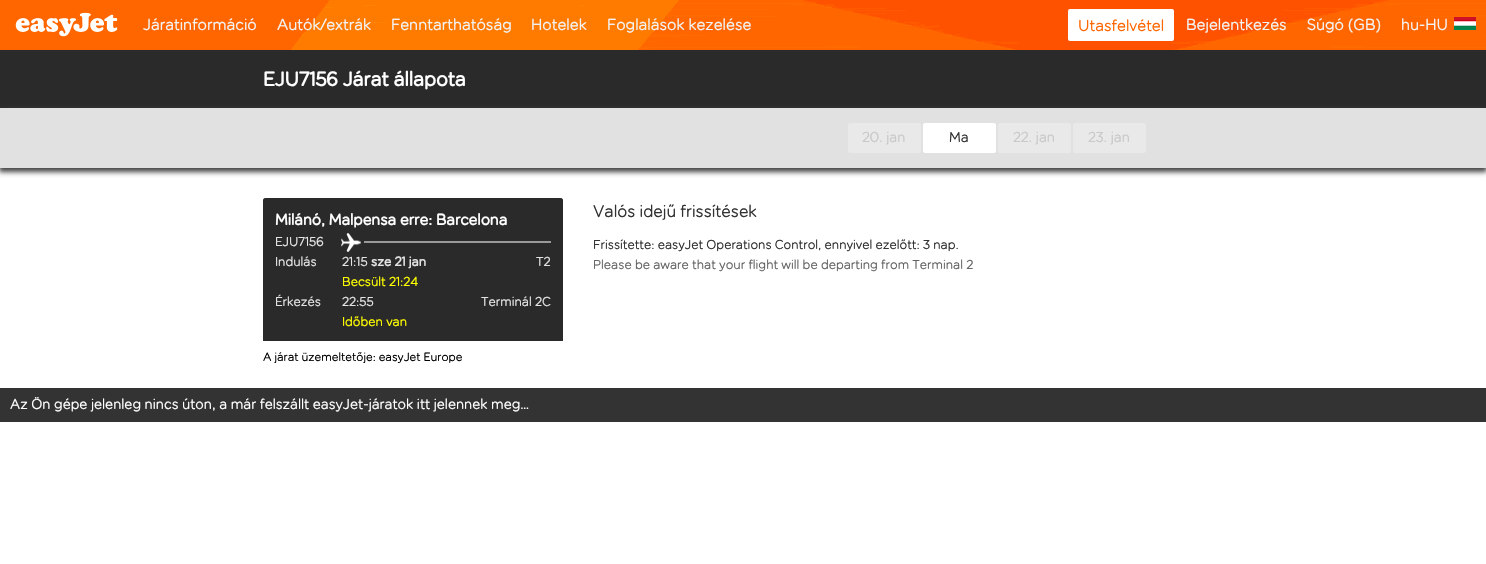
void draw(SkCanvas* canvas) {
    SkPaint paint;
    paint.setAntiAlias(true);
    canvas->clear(0xFFFFFFFF);
    paint.setColor(0xFFFF6600);
    canvas->drawRect(SkRect::MakeXYWH(0, 0, 291, 50), paint);
    canvas->drawImageRect(SkImages::DeferredFromEncodedData(SkData::MakeFromFileName("img1.png")), SkRect::MakeXYWH(291, 0, 1195, 50), SkSamplingOptions());
    canvas->drawImageRect(SkImages::DeferredFromEncodedData(SkData::MakeFromFileName("img2.png")), SkRect::MakeXYWH(15, 12, 103, 25), SkSamplingOptions());
    SkFont font1(fontMgr->matchFamilyStyle("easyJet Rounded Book", SkFontStyle::Normal()), 16);
    font1.setSubpixel(true);
    paint.setColor(0xFFF2F2F2);
    canvas->drawString("Járatinformáció", 143, 30, font1, paint);
    canvas->drawString("Autók/extrák", 277, 30, font1, paint);
    canvas->drawString("Fenntarthatóság", 391, 30, font1, paint);
    canvas->drawString("Hotelek", 531, 30, font1, paint);
    canvas->drawString("Foglalások kezelése", 607, 30, font1, paint);
    paint.setColor(0xFFFFFFFF);
    canvas->drawRoundRect(SkRect::MakeXYWH(1068, 9, 106, 32), 2, 2, paint);
    paint.setColor(0xFFFF6600);
    canvas->drawString("Utasfelvétel", 1078, 31, font1, paint);
    paint.setColor(0xFFF2F2F2);
    canvas->drawString("Bejelentkezés", 1186, 30, font1, paint);
    canvas->drawString("Súgó (GB)", 1307, 30, font1, paint);
    canvas->drawString("hu-HU", 1401, 30, font1, paint);
    canvas->drawImageRect(SkImages::DeferredFromEncodedData(SkData::MakeFromFileName("img3.png")), SkRect::MakeXYWH(1454, 17, 22, 13), SkSamplingOptions());
    paint.setColor(0xFF2A2A2A);
    canvas->drawRect(SkRect::MakeXYWH(0, 50, 1486, 58), paint);
    SkFont font2(fontMgr->matchFamilyStyle("easyJet Rounded Book", SkFontStyle::Bold()), 20);
    font2.setSubpixel(true);
    paint.setColor(0xFFFFFFFF);
    canvas->drawString("EJU7156 Járat állapota", 263, 86, font2, paint);
    paint.setColor(0xFF444444);
    paint.setMaskFilter(SkMaskFilter::MakeBlur(kNormal_SkBlurStyle, 2.5f));
    canvas->drawRect(SkRect::MakeXYWH(-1, 110, 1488, 62), paint);
    paint.setMaskFilter(nullptr);
    paint.setColor(0xFFE1E1E1);
    canvas->drawRect(SkRect::MakeXYWH(0, 108, 1486, 60), paint);
    paint.setColor(0xFFE9E9E9);
    canvas->drawRoundRect(SkRect::MakeXYWH(848, 123, 73, 30), 2, 2, paint);
    SkFont font3(fontMgr->matchFamilyStyle("easyJet Rounded Book", SkFontStyle::Normal()), 14.4f);
    font3.setSubpixel(true);
    paint.setColor(0xFFC9C9C9);
    canvas->drawString("20. jan", 862, 142, font3, paint);
    paint.setColor(0xFFFFFFFF);
    canvas->drawRoundRect(SkRect::MakeXYWH(923, 123, 73, 30), 2, 2, paint);
    paint.setColor(0xFF333333);
    canvas->drawString("Ma", 949, 142, font3, paint);
    paint.setColor(0xFFE9E9E9);
    canvas->drawRoundRect(SkRect::MakeXYWH(998, 123, 73, 30), 2, 2, paint);
    paint.setColor(0xFFC9C9C9);
    canvas->drawString("22. jan", 1013, 142, font3, paint);
    paint.setColor(0xFFE9E9E9);
    canvas->drawRoundRect(SkRect::MakeXYWH(1073, 123, 73, 30), 2, 2, paint);
    paint.setColor(0xFFC9C9C9);
    canvas->drawString("23. jan", 1088, 142, font3, paint);
    paint.setColor(0xFF2A2A2A);
    canvas->drawPath(SkPathBuilder().moveTo(265, 198).lineTo(561, 198).cubicTo(562, 198, 563, 199, 563, 200).lineTo(563, 341).lineTo(263, 341).lineTo(263, 200).cubicTo(263, 199, 264, 198, 265, 198).close().detach(), paint);
    SkFont font4(fontMgr->matchFamilyStyle("easyJet Rounded Book", SkFontStyle::Bold()), 15.6f);
    font4.setSubpixel(true);
    paint.setColor(0xFFFFFFFF);
    canvas->drawString("Milánó, Malpensa erre: Barcelona", 275, 225, font4, paint);
    SkFont font5(fontMgr->matchFamilyStyle("easyJet Rounded Book", SkFontStyle::Normal()), 13);
    font5.setSubpixel(true);
    paint.setColor(0xFFE4E4E4);
    canvas->drawString("EJU7156", 275, 246, font5, paint);
    paint.setColor(0xFF999999);
    canvas->drawRect(SkRect::MakeXYWH(364, 241, 187, 2), paint);
    canvas->drawImageRect(SkImages::DeferredFromEncodedData(SkData::MakeFromFileName("img4.png")), SkRect::MakeXYWH(341, 233, 20, 19), SkSamplingOptions());
    paint.setColor(0xFFE4E4E4);
    canvas->drawString("Indulás", 275, 266, font5, paint);
    canvas->drawString("21:15", 342, 266, font5, paint);
    SkFont font6(fontMgr->matchFamilyStyle("easyJet Rounded Book", SkFontStyle::Bold()), 13);
    font6.setSubpixel(true);
    canvas->drawString("sze 21 jan", 371, 266, font6, paint);
    canvas->drawString("T2", 536, 266, font5, paint);
    paint.setColor(0xFFFFFF00);
    canvas->drawString("Becsült 21:24", 342, 286, font5, paint);
    paint.setColor(0xFFE4E4E4);
    canvas->drawString("Érkezés", 275, 306, font5, paint);
    canvas->drawString("22:55", 342, 306, font5, paint);
    canvas->drawString("Terminál 2C", 481, 306, font5, paint);
    paint.setColor(0xFFFFFF00);
    canvas->drawString("Időben van", 342, 326, font5, paint);
    SkFont font7(fontMgr->matchFamilyStyle("easyJet Rounded Book", SkFontStyle::Normal()), 12);
    font7.setSubpixel(true);
    paint.setColor(0xFF000000);
    canvas->drawString("A járat üzemeltetője: easyJet Europe", 263, 361, font7, paint);
    SkFont font8(fontMgr->matchFamilyStyle("easyJet Rounded Book", SkFontStyle::Normal()), 17);
    font8.setSubpixel(true);
    paint.setColor(0xFF333333);
    canvas->drawString("Valós idejű frissítések", 593, 217, font8, paint);
    canvas->drawString("Frissítette: easyJet Operations Control, ennyivel ezelőtt: 3 nap.", 593, 249, font5, paint);
    paint.setColor(0xFF666666);
    canvas->drawString("Please be aware that your flight will be departing from Terminal 2", 593, 269, font5, paint);
    paint.setColor(0xFF333333);
    canvas->drawRect(SkRect::MakeXYWH(0, 388, 1486, 34), paint);
    paint.setColor(0xFFFFFFFF);
    canvas->drawString("Az Ön gépe jelenleg nincs úton, a már felszállt easyJet-járatok itt jelennek meg…", 10, 409, font3, paint);
}
